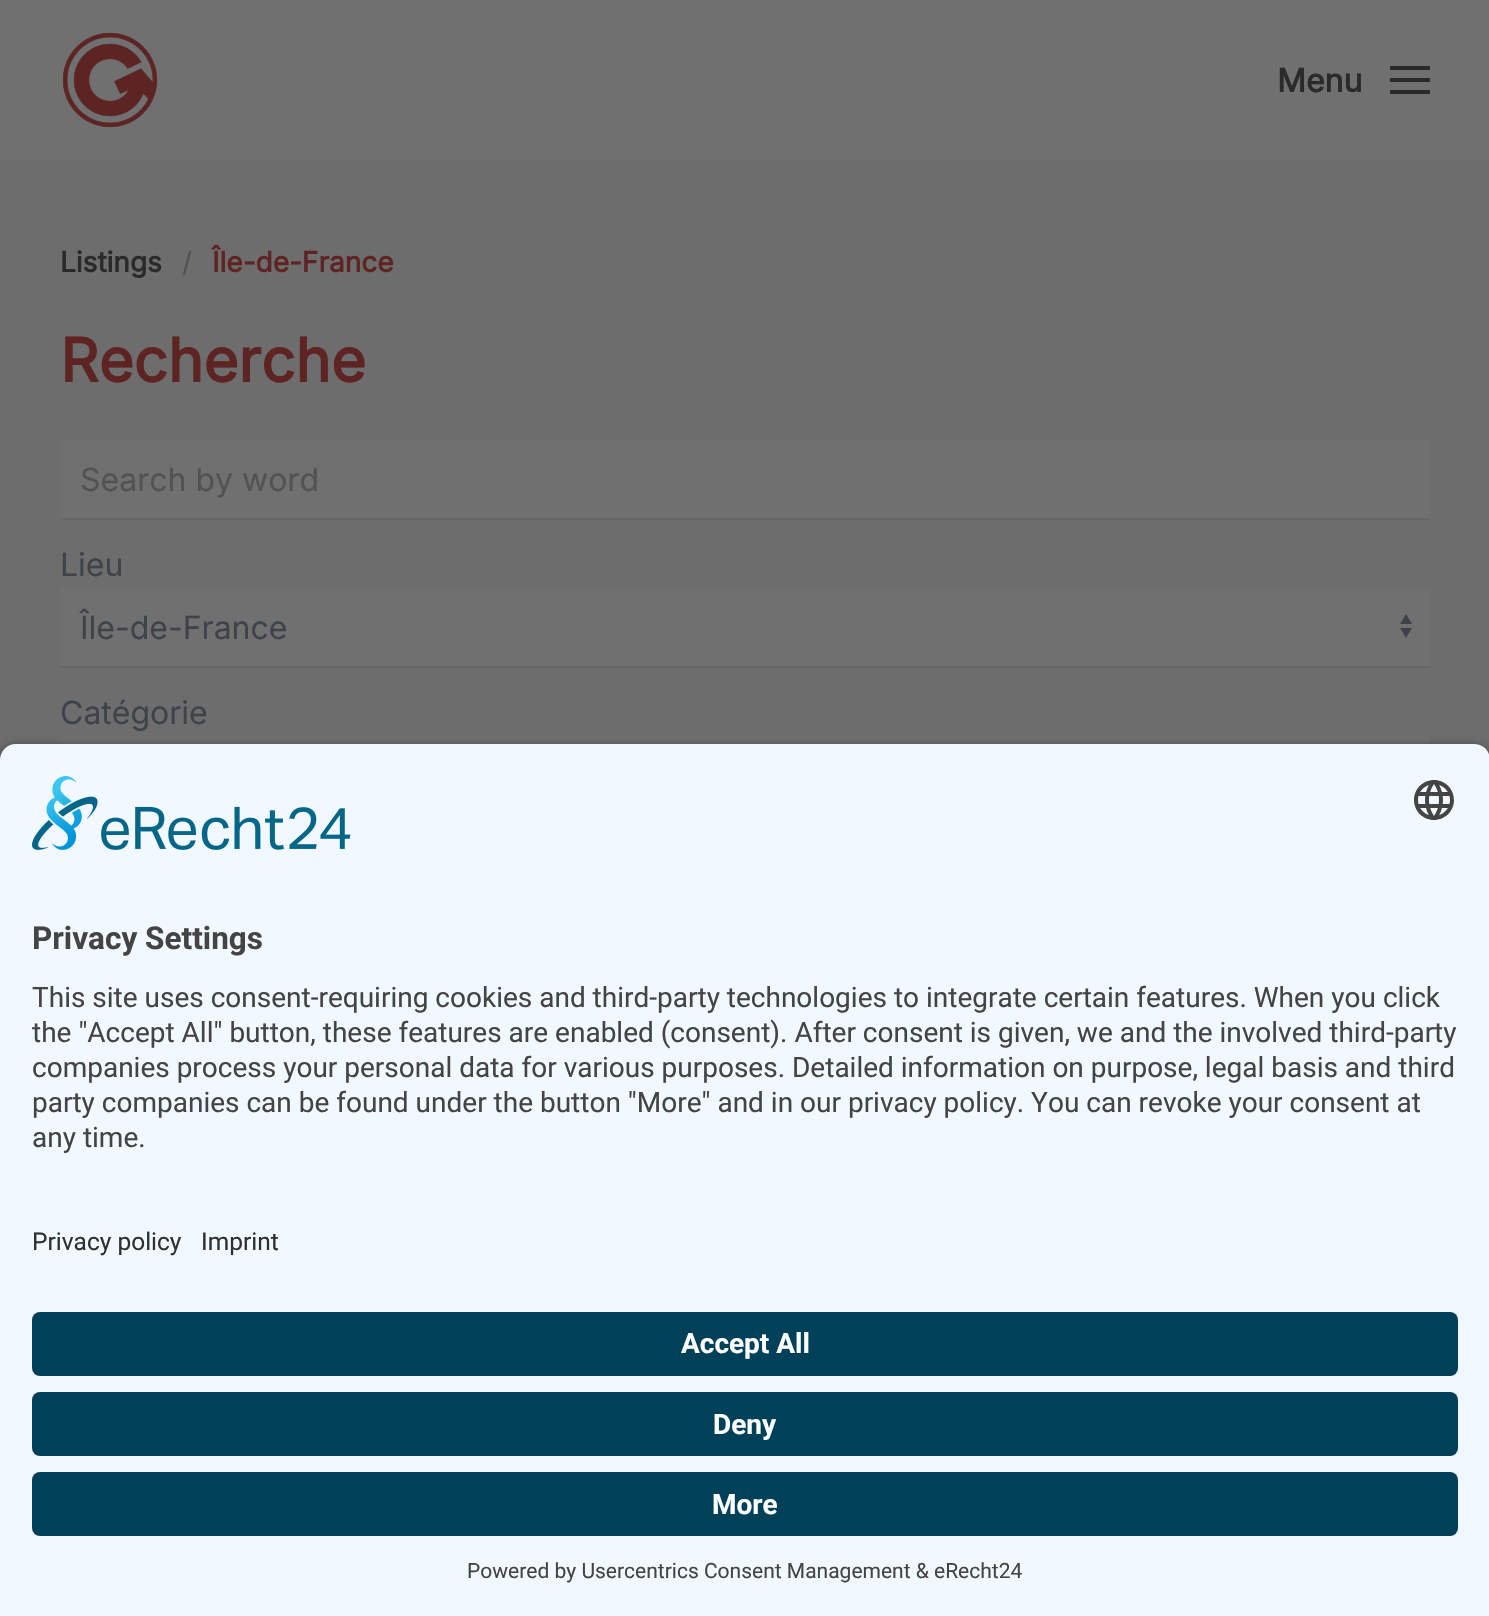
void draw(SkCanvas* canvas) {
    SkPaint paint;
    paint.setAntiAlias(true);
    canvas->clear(0xFF6D6D6D);
    paint.setColor(0xFF707070);
    canvas->drawRect(SkRect::MakeXYWH(0, 0, 1489, 160), paint);
    canvas->drawImageRect(SkImages::DeferredFromEncodedData(SkData::MakeFromFileName("img1.png")), SkRect::MakeXYWH(62, 32, 96, 96), SkSamplingOptions());
    SkFont font1(fontMgr->matchFamilyStyle("Inter", SkFontStyle::Bold()), 32);
    font1.setSubpixel(true);
    paint.setColor(0xFF2A2A2A);
    canvas->drawString("Menu", 1277, 92, font1, paint);
    canvas->drawRect(SkRect::MakeXYWH(1390, 66, 40, 4), paint);
    canvas->drawRect(SkRect::MakeXYWH(1390, 78, 40, 4), paint);
    canvas->drawRect(SkRect::MakeXYWH(1390, 90, 40, 4), paint);
    SkFont font2(fontMgr->matchFamilyStyle("Inter", SkFontStyle::Bold()), 28);
    font2.setSubpixel(true);
    canvas->drawString("Listings", 60, 272, font2, paint);
    SkFont font3(fontMgr->matchFamilyStyle("Inter", SkFontStyle::Normal()), 28);
    font3.setSubpixel(true);
    paint.setColor(0xFF525252);
    canvas->drawString("/", 182, 272, font3, paint);
    paint.setColor(0xFF5E2424);
    canvas->drawString("Île-de-France", 212, 272, font2, paint);
    SkFont font4(fontMgr->matchFamilyStyle("Inter", SkFontStyle::Bold()), 60);
    font4.setSubpixel(true);
    canvas->drawString("Recherche", 60, 382, font4, paint);
    paint.setColor(0xFF707070);
    canvas->drawRect(SkRect::MakeXYWH(60, 440, 1370, 78), paint);
    paint.setColor(0xFF666666);
    canvas->drawRect(SkRect::MakeXYWH(60, 518, 1370, 2), paint);
    SkFont font5(fontMgr->matchFamilyStyle("Inter", SkFontStyle::Normal()), 32);
    font5.setSubpixel(true);
    paint.setColor(0xFF525252);
    canvas->drawString("Search by word", 80, 491, font5, paint);
    paint.setColor(0xFF3E434A);
    canvas->drawString("Lieu", 60, 576, font5, paint);
    paint.setColor(0xFF707070);
    canvas->drawRect(SkRect::MakeXYWH(60, 588, 1370, 78), paint);
    paint.setColor(0xFF3E434A);
    canvas->drawPath(SkPathBuilder().moveTo(1406, 614).lineTo(1400, 624).lineTo(1412, 624).close().moveTo(1406, 638).lineTo(1400, 628).lineTo(1412, 628).close().detach(), paint);
    paint.setColor(0xFF666666);
    canvas->drawRect(SkRect::MakeXYWH(60, 666, 1370, 2), paint);
    paint.setColor(0xFF3E434A);
    canvas->drawString("Île-de-France", 80, 639, font5, paint);
    canvas->drawString("Catégorie", 60, 724, font5, paint);
    paint.setColor(0xFF707070);
    canvas->drawRect(SkRect::MakeXYWH(60, 736, 1370, 8), paint);
    paint.setColor(0xCC000000);
    paint.setMaskFilter(SkMaskFilter::MakeBlur(kNormal_SkBlurStyle, 7));
    canvas->drawRoundRect(SkRect::MakeXYWH(0, 750, 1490, 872), 16, 16, paint);
    paint.setMaskFilter(nullptr);
    paint.setColor(0xFFF1F8FF);
    canvas->drawPath(SkPathBuilder().moveTo(16, 744).lineTo(1474, 744).cubicTo(1483, 744, 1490, 751, 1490, 760).lineTo(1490, 1196).lineTo(0, 1196).lineTo(0, 760).cubicTo(0, 751, 7, 744, 16, 744).close().detach(), paint);
    canvas->drawImageRect(SkImages::DeferredFromEncodedData(SkData::MakeFromFileName("img2.png")), SkRect::MakeXYWH(32, 776, 319, 74), SkSamplingOptions());
    canvas->drawImageRect(SkImages::DeferredFromEncodedData(SkData::MakeFromFileName("img3.png")), SkRect::MakeXYWH(1414, 780, 40, 40), SkSamplingOptions());
    SkFont font6(fontMgr->matchFamilyStyle("Roboto", SkFontStyle::Bold()), 31.5f);
    font6.setSubpixel(true);
    paint.setColor(0xFF444444);
    canvas->drawString("Privacy Settings", 32, 949, font6, paint);
    SkFont font7(fontMgr->matchFamilyStyle("Roboto", SkFontStyle::Normal()), 28);
    font7.setSubpixel(true);
    canvas->drawString("This site uses consent-requiring cookies and third-party technologies to integrate certain features. When you click", 32, 1007, font7, paint);
    canvas->drawString("the \"Accept All\" button, these features are enabled (consent). After consent is given, we and the involved third-party", 32, 1042, font7, paint);
    canvas->drawString("companies process your personal data for various purposes. Detailed information on purpose, legal basis and third", 32, 1077, font7, paint);
    canvas->drawString("party companies can be found under the button \"More\" and in our privacy policy. You can revoke your consent at", 32, 1112, font7, paint);
    canvas->drawString("any time.", 32, 1147, font7, paint);
    paint.setColor(0xFFF1F8FF);
    canvas->drawRect(SkRect::MakeXYWH(0, 1196, 1489, 420), paint);
    SkFont font8(fontMgr->matchFamilyStyle("Roboto", SkFontStyle::Normal()), 24.5f);
    font8.setSubpixel(true);
    paint.setColor(0xFF303030);
    canvas->drawString("Privacy policy", 32, 1250, font8, paint);
    canvas->drawString("Imprint", 201, 1250, font8, paint);
    paint.setColor(0xFF004059);
    canvas->drawRoundRect(SkRect::MakeXYWH(32, 1312, 1426, 64), 8, 8, paint);
    SkFont font9(fontMgr->matchFamilyStyle("Roboto", SkFontStyle::Bold()), 28);
    font9.setSubpixel(true);
    paint.setColor(0xFFFFFFFF);
    canvas->drawString("Accept All", 681, 1353, font9, paint);
    paint.setColor(0xFF004059);
    canvas->drawRoundRect(SkRect::MakeXYWH(32, 1392, 1426, 64), 8, 8, paint);
    paint.setColor(0xFFFFFFFF);
    canvas->drawString("Deny", 713, 1434, font9, paint);
    paint.setColor(0xFF004059);
    canvas->drawRoundRect(SkRect::MakeXYWH(32, 1472, 1426, 64), 8, 8, paint);
    paint.setColor(0xFFFFFFFF);
    canvas->drawString("More", 712, 1514, font9, paint);
    SkFont font10(fontMgr->matchFamilyStyle("Roboto", SkFontStyle::Normal()), 21);
    font10.setSubpixel(true);
    paint.setColor(0xFF444444);
    canvas->drawString("Powered by Usercentrics Consent Management & eRecht24", 467, 1578, font10, paint);
}
